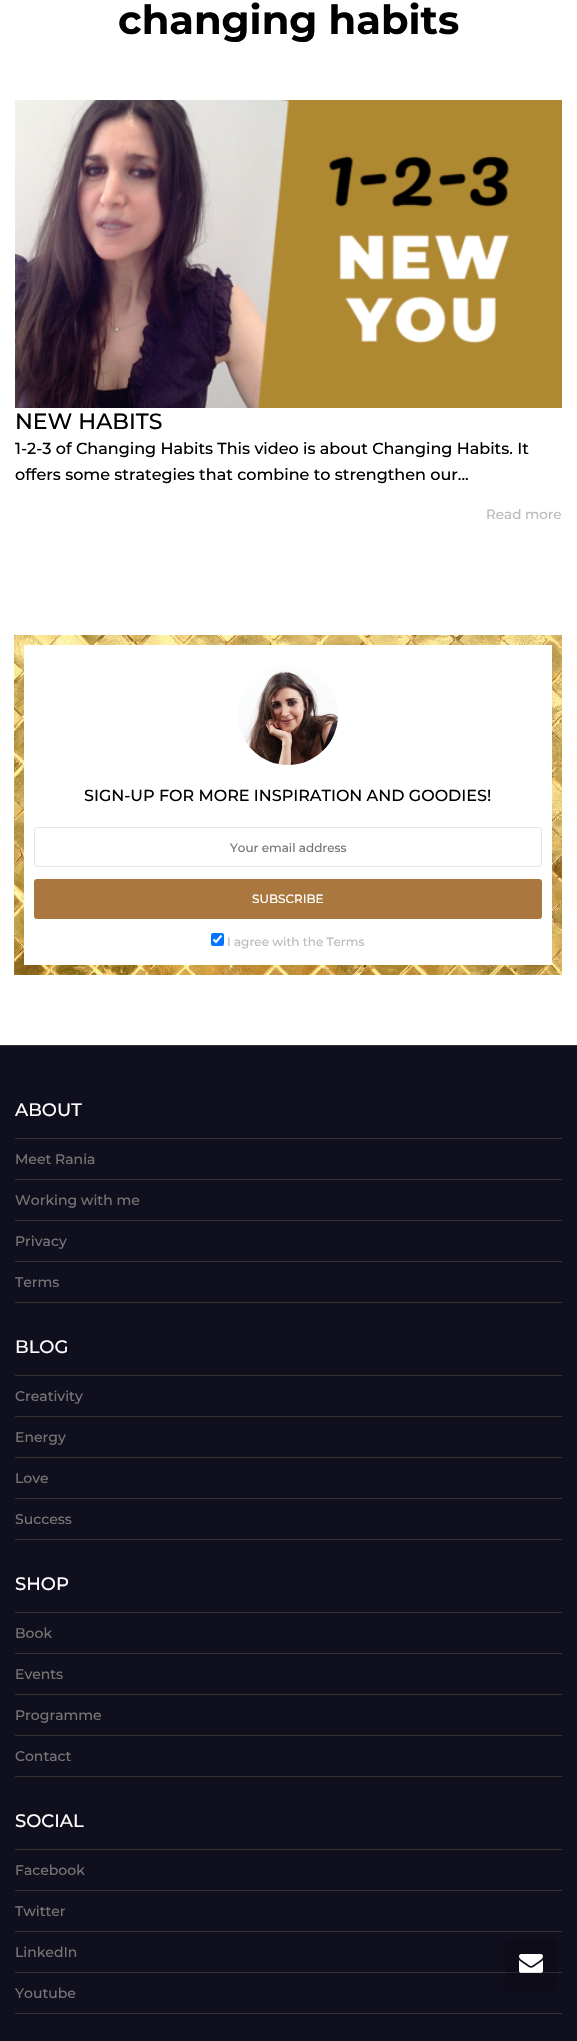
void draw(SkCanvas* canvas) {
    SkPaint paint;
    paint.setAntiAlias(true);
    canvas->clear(0xFFFFFFFF);
    SkFont font1(fontMgr->matchFamilyStyle("Montserrat", SkFontStyle::Bold()), 40);
    font1.setSubpixel(true);
    paint.setColor(0xFF000000);
    canvas->drawString("changing habits", 118, 34, font1, paint);
    canvas->drawImageRect(SkImages::DeferredFromEncodedData(SkData::MakeFromFileName("img1.png")), SkRect::MakeXYWH(15, 100, 547, 308), SkSamplingOptions());
    SkFont font2(fontMgr->matchFamilyStyle("Montserrat", SkFontStyle(500, SkFontStyle::kNormal_Width, SkFontStyle::kUpright_Slant)), 22);
    font2.setSubpixel(true);
    canvas->drawString("NEW HABITS", 15, 429, font2, paint);
    SkFont font3(fontMgr->matchFamilyStyle("Montserrat", SkFontStyle(500, SkFontStyle::kNormal_Width, SkFontStyle::kUpright_Slant)), 16);
    font3.setSubpixel(true);
    canvas->drawString("1-2-3 of Changing Habits This video is about Changing Habits. It", 15, 454, font3, paint);
    canvas->drawString("offers some strategies that combine to strengthen our...", 15, 480, font3, paint);
    SkFont font4(fontMgr->matchFamilyStyle("Montserrat", SkFontStyle(500, SkFontStyle::kNormal_Width, SkFontStyle::kUpright_Slant)), 13.5f);
    font4.setSubpixel(true);
    paint.setColor(0xFFBBBBBB);
    canvas->drawString("Read more", 486, 519, font4, paint);
    canvas->drawImageRect(SkImages::DeferredFromEncodedData(SkData::MakeFromFileName("img2.png")), SkRect::MakeXYWH(14, 635, 548, 340), SkSamplingOptions());
    paint.setColor(0xFFFFFFFF);
    canvas->drawRect(SkRect::MakeXYWH(24, 645, 528, 320), paint);
    canvas->drawImageRect(SkImages::DeferredFromEncodedData(SkData::MakeFromFileName("img3.png")), SkRect::MakeXYWH(238, 665, 100, 100), SkSamplingOptions());
    paint.setColor(0xFF000000);
    canvas->drawString("SIGN-UP FOR MORE INSPIRATION AND GOODIES!", 84, 801, font3, paint);
    paint.setStyle(SkPaint::kStroke_Style);
    paint.setStrokeWidth(1);
    paint.setColor(0xFFE5E5E5);
    canvas->drawRoundRect(SkRect::MakeXYWH(34.5f, 827.5f, 507, 39), 2.5f, 2.5f, paint);
    SkFont font5(fontMgr->matchFamilyStyle("Montserrat", SkFontStyle(500, SkFontStyle::kNormal_Width, SkFontStyle::kUpright_Slant)), 12);
    font5.setSubpixel(true);
    paint.setStyle(SkPaint::kFill_Style);
    paint.setColor(0xFF757575);
    canvas->drawString("Your email address", 230, 852, font5, paint);
    paint.setColor(0xFFAA783E);
    canvas->drawRoundRect(SkRect::MakeXYWH(34, 879, 508, 40), 3, 3, paint);
    paint.setColor(0xFFFFFFFF);
    canvas->drawString("SUBSCRIBE", 252, 903, font5, paint);
    paint.setColor(0xFF0075FF);
    canvas->drawRoundRect(SkRect::MakeXYWH(211, 933, 13, 13), 2, 2, paint);
    paint.setStyle(SkPaint::kStroke_Style);
    paint.setStrokeWidth(2.1f);
    paint.setColor(0xFFFFFFFF);
    canvas->drawPath(SkPathBuilder().moveTo(213.5f, 939.5f).lineTo(216, 942).lineTo(221.5f, 935.5f).detach(), paint);
    paint.setStyle(SkPaint::kFill_Style);
    paint.setColor(0xFFBBBBBB);
    canvas->drawString("I agree with the Terms", 227, 946, font5, paint);
    paint.setColor(0xFF100F1D);
    canvas->drawRect(SkRect::MakeXYWH(0, 1046, 577, 995), paint);
    paint.setColor(0xFF333333);
    canvas->drawRect(SkRect::MakeXYWH(0, 1045, 577, 1), paint);
    SkFont font6(fontMgr->matchFamilyStyle("Montserrat", SkFontStyle(500, SkFontStyle::kNormal_Width, SkFontStyle::kUpright_Slant)), 18);
    font6.setSubpixel(true);
    paint.setColor(0xFFFFFFFF);
    canvas->drawString("ABOUT", 15, 1116, font6, paint);
    paint.setColor(0xFF333333);
    canvas->drawRect(SkRect::MakeXYWH(15, 1138, 547, 1), paint);
    canvas->drawRect(SkRect::MakeXYWH(15, 1179, 547, 1), paint);
    SkFont font7(fontMgr->matchFamilyStyle("Montserrat", SkFontStyle(500, SkFontStyle::kNormal_Width, SkFontStyle::kUpright_Slant)), 14);
    font7.setSubpixel(true);
    paint.setColor(0xFF757575);
    canvas->drawString("Meet Rania", 15, 1164, font7, paint);
    paint.setColor(0xFF333333);
    canvas->drawRect(SkRect::MakeXYWH(15, 1220, 547, 1), paint);
    paint.setColor(0xFF757575);
    canvas->drawString("Working with me", 15, 1205, font7, paint);
    paint.setColor(0xFF333333);
    canvas->drawRect(SkRect::MakeXYWH(15, 1261, 547, 1), paint);
    paint.setColor(0xFF757575);
    canvas->drawString("Privacy", 15, 1246, font7, paint);
    paint.setColor(0xFF333333);
    canvas->drawRect(SkRect::MakeXYWH(15, 1302, 547, 1), paint);
    paint.setColor(0xFF757575);
    canvas->drawString("Terms", 15, 1287, font7, paint);
    paint.setColor(0xFFFFFFFF);
    canvas->drawString("BLOG", 15, 1353, font6, paint);
    paint.setColor(0xFF333333);
    canvas->drawRect(SkRect::MakeXYWH(15, 1375, 547, 1), paint);
    canvas->drawRect(SkRect::MakeXYWH(15, 1416, 547, 1), paint);
    paint.setColor(0xFF757575);
    canvas->drawString("Creativity", 15, 1401, font7, paint);
    paint.setColor(0xFF333333);
    canvas->drawRect(SkRect::MakeXYWH(15, 1457, 547, 1), paint);
    paint.setColor(0xFF757575);
    canvas->drawString("Energy", 15, 1442, font7, paint);
    paint.setColor(0xFF333333);
    canvas->drawRect(SkRect::MakeXYWH(15, 1498, 547, 1), paint);
    paint.setColor(0xFF757575);
    canvas->drawString("Love", 15, 1483, font7, paint);
    paint.setColor(0xFF333333);
    canvas->drawRect(SkRect::MakeXYWH(15, 1539, 547, 1), paint);
    paint.setColor(0xFF757575);
    canvas->drawString("Success", 15, 1524, font7, paint);
    paint.setColor(0xFFFFFFFF);
    canvas->drawString("SHOP", 15, 1590, font6, paint);
    paint.setColor(0xFF333333);
    canvas->drawRect(SkRect::MakeXYWH(15, 1612, 547, 1), paint);
    canvas->drawRect(SkRect::MakeXYWH(15, 1653, 547, 1), paint);
    paint.setColor(0xFF757575);
    canvas->drawString("Book", 15, 1638, font7, paint);
    paint.setColor(0xFF333333);
    canvas->drawRect(SkRect::MakeXYWH(15, 1694, 547, 1), paint);
    paint.setColor(0xFF757575);
    canvas->drawString("Events", 15, 1679, font7, paint);
    paint.setColor(0xFF333333);
    canvas->drawRect(SkRect::MakeXYWH(15, 1735, 547, 1), paint);
    paint.setColor(0xFF757575);
    canvas->drawString("Programme", 15, 1720, font7, paint);
    paint.setColor(0xFF333333);
    canvas->drawRect(SkRect::MakeXYWH(15, 1776, 547, 1), paint);
    paint.setColor(0xFF757575);
    canvas->drawString("Contact", 15, 1761, font7, paint);
    paint.setColor(0xFFFFFFFF);
    canvas->drawString("SOCIAL", 15, 1827, font6, paint);
    paint.setColor(0xFF333333);
    canvas->drawRect(SkRect::MakeXYWH(15, 1849, 547, 1), paint);
    canvas->drawRect(SkRect::MakeXYWH(15, 1890, 547, 1), paint);
    paint.setColor(0xFF757575);
    canvas->drawString("Facebook", 15, 1875, font7, paint);
    paint.setColor(0xFF333333);
    canvas->drawRect(SkRect::MakeXYWH(15, 1931, 547, 1), paint);
    paint.setColor(0xFF757575);
    canvas->drawString("Twitter", 15, 1916, font7, paint);
    paint.setColor(0xFF333333);
    canvas->drawRect(SkRect::MakeXYWH(15, 1972, 547, 1), paint);
    paint.setColor(0xFF757575);
    canvas->drawString("LinkedIn", 15, 1957, font7, paint);
    paint.setColor(0xFF333333);
    canvas->drawRect(SkRect::MakeXYWH(15, 2013, 547, 1), paint);
    paint.setColor(0xFF757575);
    canvas->drawString("Youtube", 15, 1998, font7, paint);
    paint.setColor(0x33000000);
    canvas->drawRoundRect(SkRect::MakeXYWH(505, 1939, 52, 52), 3, 3, paint);
    canvas->drawImageRect(SkImages::DeferredFromEncodedData(SkData::MakeFromFileName("img4.png")), SkRect::MakeXYWH(519, 1954, 24, 19), SkSamplingOptions());
}
